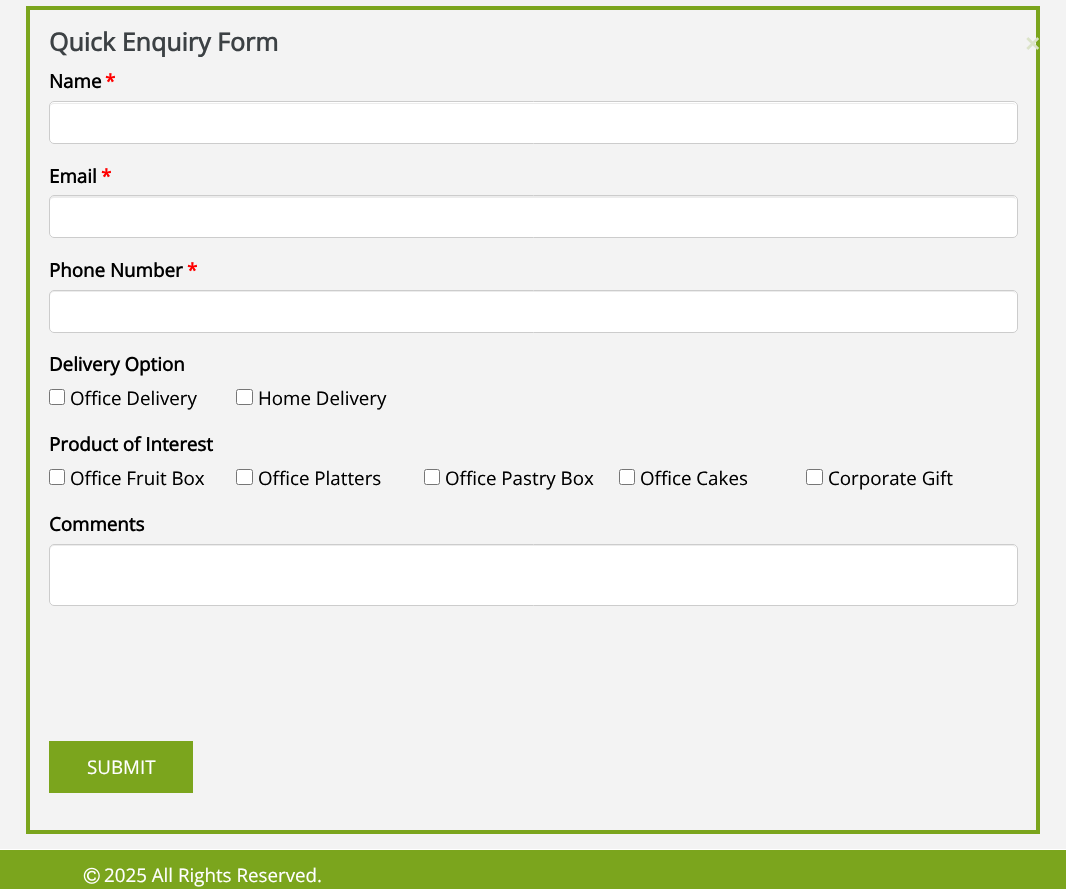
void draw(SkCanvas* canvas) {
    SkPaint paint;
    paint.setAntiAlias(true);
    canvas->clear(0xFFFFFFFF);
    paint.setColor(0xFFF3F3F3);
    canvas->drawRect(SkRect::MakeXYWH(0, 0, 1066, 849), paint);
    paint.setStyle(SkPaint::kStroke_Style);
    paint.setStrokeWidth(4);
    paint.setColor(0xFF7BA51D);
    canvas->drawRect(SkRect::MakeXYWH(28, 8, 1010, 824), paint);
    SkFont font1(fontMgr->matchFamilyStyle("Open Sans", SkFontStyle::Bold()), 25);
    font1.setSubpixel(true);
    paint.setStyle(SkPaint::kFill_Style);
    paint.setColor(0xFF3C4144);
    canvas->drawString("Quick Enquiry Form", 49, 51, font1, paint);
    SkFont font2(fontMgr->matchFamilyStyle("Open Sans", SkFontStyle::Bold()), 18.75f);
    font2.setSubpixel(true);
    paint.setColor(0xFF000000);
    canvas->drawString("Name", 49, 88, font2, paint);
    paint.setColor(0xFFFF0000);
    canvas->drawString("*", 105, 88, font2, paint);
    paint.setColor(0xFFFFFFFF);
    canvas->drawRoundRect(SkRect::MakeXYWH(49, 101, 969, 43), 5, 5, paint);
    paint.setColor(0xFFECECEC);
    canvas->drawPath(SkPathBuilder().moveTo(54, 104).lineTo(1012, 104).cubicTo(1015, 104, 1016, 105, 1016, 108).cubicTo(1016, 105, 1015, 103, 1012, 103).lineTo(54, 103).cubicTo(51, 103, 50, 105, 50, 108).cubicTo(50, 105, 52, 104, 54, 104).close().detach(), paint);
    paint.setStyle(SkPaint::kStroke_Style);
    paint.setStrokeWidth(1);
    paint.setColor(0xFFCCCCCC);
    canvas->drawRoundRect(SkRect::MakeXYWH(49.5f, 101.5f, 968, 42), 4.5f, 4.5f, paint);
    paint.setStyle(SkPaint::kFill_Style);
    paint.setColor(0xFF000000);
    canvas->drawString("Email", 49, 183, font2, paint);
    paint.setColor(0xFFFF0000);
    canvas->drawString("*", 101, 183, font2, paint);
    paint.setColor(0xFFFFFFFF);
    canvas->drawRoundRect(SkRect::MakeXYWH(49, 195, 969, 43), 5, 5, paint);
    paint.setColor(0xFFECECEC);
    canvas->drawPath(SkPathBuilder().moveTo(54, 198).lineTo(1012, 198).cubicTo(1015, 198, 1016, 199, 1016, 201).cubicTo(1016, 198, 1015, 196, 1012, 196).lineTo(54, 196).cubicTo(51, 196, 50, 198, 50, 201).cubicTo(50, 199, 52, 198, 54, 198).close().detach(), paint);
    paint.setStyle(SkPaint::kStroke_Style);
    paint.setColor(0xFFCCCCCC);
    canvas->drawRoundRect(SkRect::MakeXYWH(49.5f, 195.5f, 968, 42), 4.5f, 4.5f, paint);
    paint.setStyle(SkPaint::kFill_Style);
    paint.setColor(0xFF000000);
    canvas->drawString("Phone Number", 49, 277, font2, paint);
    paint.setColor(0xFFFF0000);
    canvas->drawString("*", 187, 277, font2, paint);
    paint.setColor(0xFFFFFFFF);
    canvas->drawRoundRect(SkRect::MakeXYWH(49, 290, 969, 43), 5, 5, paint);
    paint.setColor(0xFFECECEC);
    canvas->drawPath(SkPathBuilder().moveTo(54, 292).lineTo(1012, 292).cubicTo(1015, 292, 1016, 294, 1016, 296).cubicTo(1016, 293, 1015, 291, 1012, 291).lineTo(54, 291).cubicTo(51, 291, 50, 293, 50, 296).cubicTo(50, 294, 52, 292, 54, 292).close().detach(), paint);
    paint.setStyle(SkPaint::kStroke_Style);
    paint.setColor(0xFFCCCCCC);
    canvas->drawRoundRect(SkRect::MakeXYWH(49.5f, 290.5f, 968, 42), 4.5f, 4.5f, paint);
    paint.setStyle(SkPaint::kFill_Style);
    paint.setColor(0xFF000000);
    canvas->drawString("Delivery Option", 49, 371, font2, paint);
    paint.setColor(0xFFFFFFFF);
    canvas->drawRoundRect(SkRect::MakeXYWH(49.5f, 389.5f, 15, 15), 2, 2, paint);
    paint.setStyle(SkPaint::kStroke_Style);
    paint.setColor(0xFF767676);
    canvas->drawRoundRect(SkRect::MakeXYWH(49.5f, 389.5f, 15, 15), 2, 2, paint);
    SkFont font3(fontMgr->matchFamilyStyle("Open Sans", SkFontStyle::Normal()), 18.75f);
    font3.setSubpixel(true);
    paint.setStyle(SkPaint::kFill_Style);
    paint.setColor(0xFF000000);
    canvas->drawString("Office Delivery", 70, 405, font3, paint);
    paint.setColor(0xFFFFFFFF);
    canvas->drawRoundRect(SkRect::MakeXYWH(236.5f, 389.5f, 16, 15), 2, 2, paint);
    paint.setStyle(SkPaint::kStroke_Style);
    paint.setColor(0xFF767676);
    canvas->drawRoundRect(SkRect::MakeXYWH(236.5f, 389.5f, 16, 15), 2, 2, paint);
    paint.setStyle(SkPaint::kFill_Style);
    paint.setColor(0xFF000000);
    canvas->drawString("Home Delivery", 258, 405, font3, paint);
    canvas->drawString("Product of Interest", 49, 451, font2, paint);
    paint.setColor(0xFFFFFFFF);
    canvas->drawRoundRect(SkRect::MakeXYWH(49.5f, 469.5f, 15, 15), 2, 2, paint);
    paint.setStyle(SkPaint::kStroke_Style);
    paint.setColor(0xFF767676);
    canvas->drawRoundRect(SkRect::MakeXYWH(49.5f, 469.5f, 15, 15), 2, 2, paint);
    paint.setStyle(SkPaint::kFill_Style);
    paint.setColor(0xFF000000);
    canvas->drawString("Office Fruit Box", 70, 485, font3, paint);
    paint.setColor(0xFFFFFFFF);
    canvas->drawRoundRect(SkRect::MakeXYWH(236.5f, 469.5f, 16, 15), 2, 2, paint);
    paint.setStyle(SkPaint::kStroke_Style);
    paint.setColor(0xFF767676);
    canvas->drawRoundRect(SkRect::MakeXYWH(236.5f, 469.5f, 16, 15), 2, 2, paint);
    paint.setStyle(SkPaint::kFill_Style);
    paint.setColor(0xFF000000);
    canvas->drawString("Office Platters", 258, 485, font3, paint);
    paint.setColor(0xFFFFFFFF);
    canvas->drawRoundRect(SkRect::MakeXYWH(424.5f, 469.5f, 15, 15), 2, 2, paint);
    paint.setStyle(SkPaint::kStroke_Style);
    paint.setColor(0xFF767676);
    canvas->drawRoundRect(SkRect::MakeXYWH(424.5f, 469.5f, 15, 15), 2, 2, paint);
    paint.setStyle(SkPaint::kFill_Style);
    paint.setColor(0xFF000000);
    canvas->drawString("Office Pastry Box", 445, 485, font3, paint);
    paint.setColor(0xFFFFFFFF);
    canvas->drawRoundRect(SkRect::MakeXYWH(619.5f, 469.5f, 15, 15), 2, 2, paint);
    paint.setStyle(SkPaint::kStroke_Style);
    paint.setColor(0xFF767676);
    canvas->drawRoundRect(SkRect::MakeXYWH(619.5f, 469.5f, 15, 15), 2, 2, paint);
    paint.setStyle(SkPaint::kFill_Style);
    paint.setColor(0xFF000000);
    canvas->drawString("Office Cakes", 640, 485, font3, paint);
    paint.setColor(0xFFFFFFFF);
    canvas->drawRoundRect(SkRect::MakeXYWH(806.5f, 469.5f, 16, 15), 2, 2, paint);
    paint.setStyle(SkPaint::kStroke_Style);
    paint.setColor(0xFF767676);
    canvas->drawRoundRect(SkRect::MakeXYWH(806.5f, 469.5f, 16, 15), 2, 2, paint);
    paint.setStyle(SkPaint::kFill_Style);
    paint.setColor(0xFF000000);
    canvas->drawString("Corporate Gift", 828, 485, font3, paint);
    canvas->drawString("Comments", 49, 531, font2, paint);
    paint.setColor(0xFFFFFFFF);
    canvas->drawRoundRect(SkRect::MakeXYWH(49, 544, 969, 62), 5, 5, paint);
    paint.setColor(0xFFECECEC);
    canvas->drawPath(SkPathBuilder().moveTo(54, 546).lineTo(1012, 546).cubicTo(1015, 546, 1016, 548, 1016, 550).cubicTo(1016, 547, 1015, 545, 1012, 545).lineTo(54, 545).cubicTo(51, 545, 50, 547, 50, 550).cubicTo(50, 548, 52, 546, 54, 546).close().detach(), paint);
    paint.setStyle(SkPaint::kStroke_Style);
    paint.setColor(0xFFCCCCCC);
    canvas->drawRoundRect(SkRect::MakeXYWH(49.5f, 544.5f, 968, 61), 4.5f, 4.5f, paint);
    paint.setStyle(SkPaint::kFill_Style);
    paint.setColor(0xFF7BA51D);
    canvas->drawRect(SkRect::MakeXYWH(49, 741, 144, 52), paint);
    paint.setColor(0xFFFFFFFF);
    canvas->drawString("SUBMIT", 87, 774, font3, paint);
    SkFont font4(fontMgr->matchFamilyStyle("Open Sans", SkFontStyle::Bold()), 26);
    font4.setSubpixel(true);
    paint.setColor(0xFFDBE3C8);
    canvas->drawString("×", 1025, 53, font4, paint);
    paint.setColor(0xFF7BA51D);
    canvas->drawRect(SkRect::MakeXYWH(0, 850, 1066, 39), paint);
    canvas->drawImageRect(SkImages::DeferredFromEncodedData(SkData::MakeFromFileName("img1.png")), SkRect::MakeXYWH(83, 867, 17, 17), SkSamplingOptions());
    paint.setColor(0xFFFFFFFF);
    canvas->drawString("2025 All Rights Reserved.", 104, 882, font3, paint);
}
